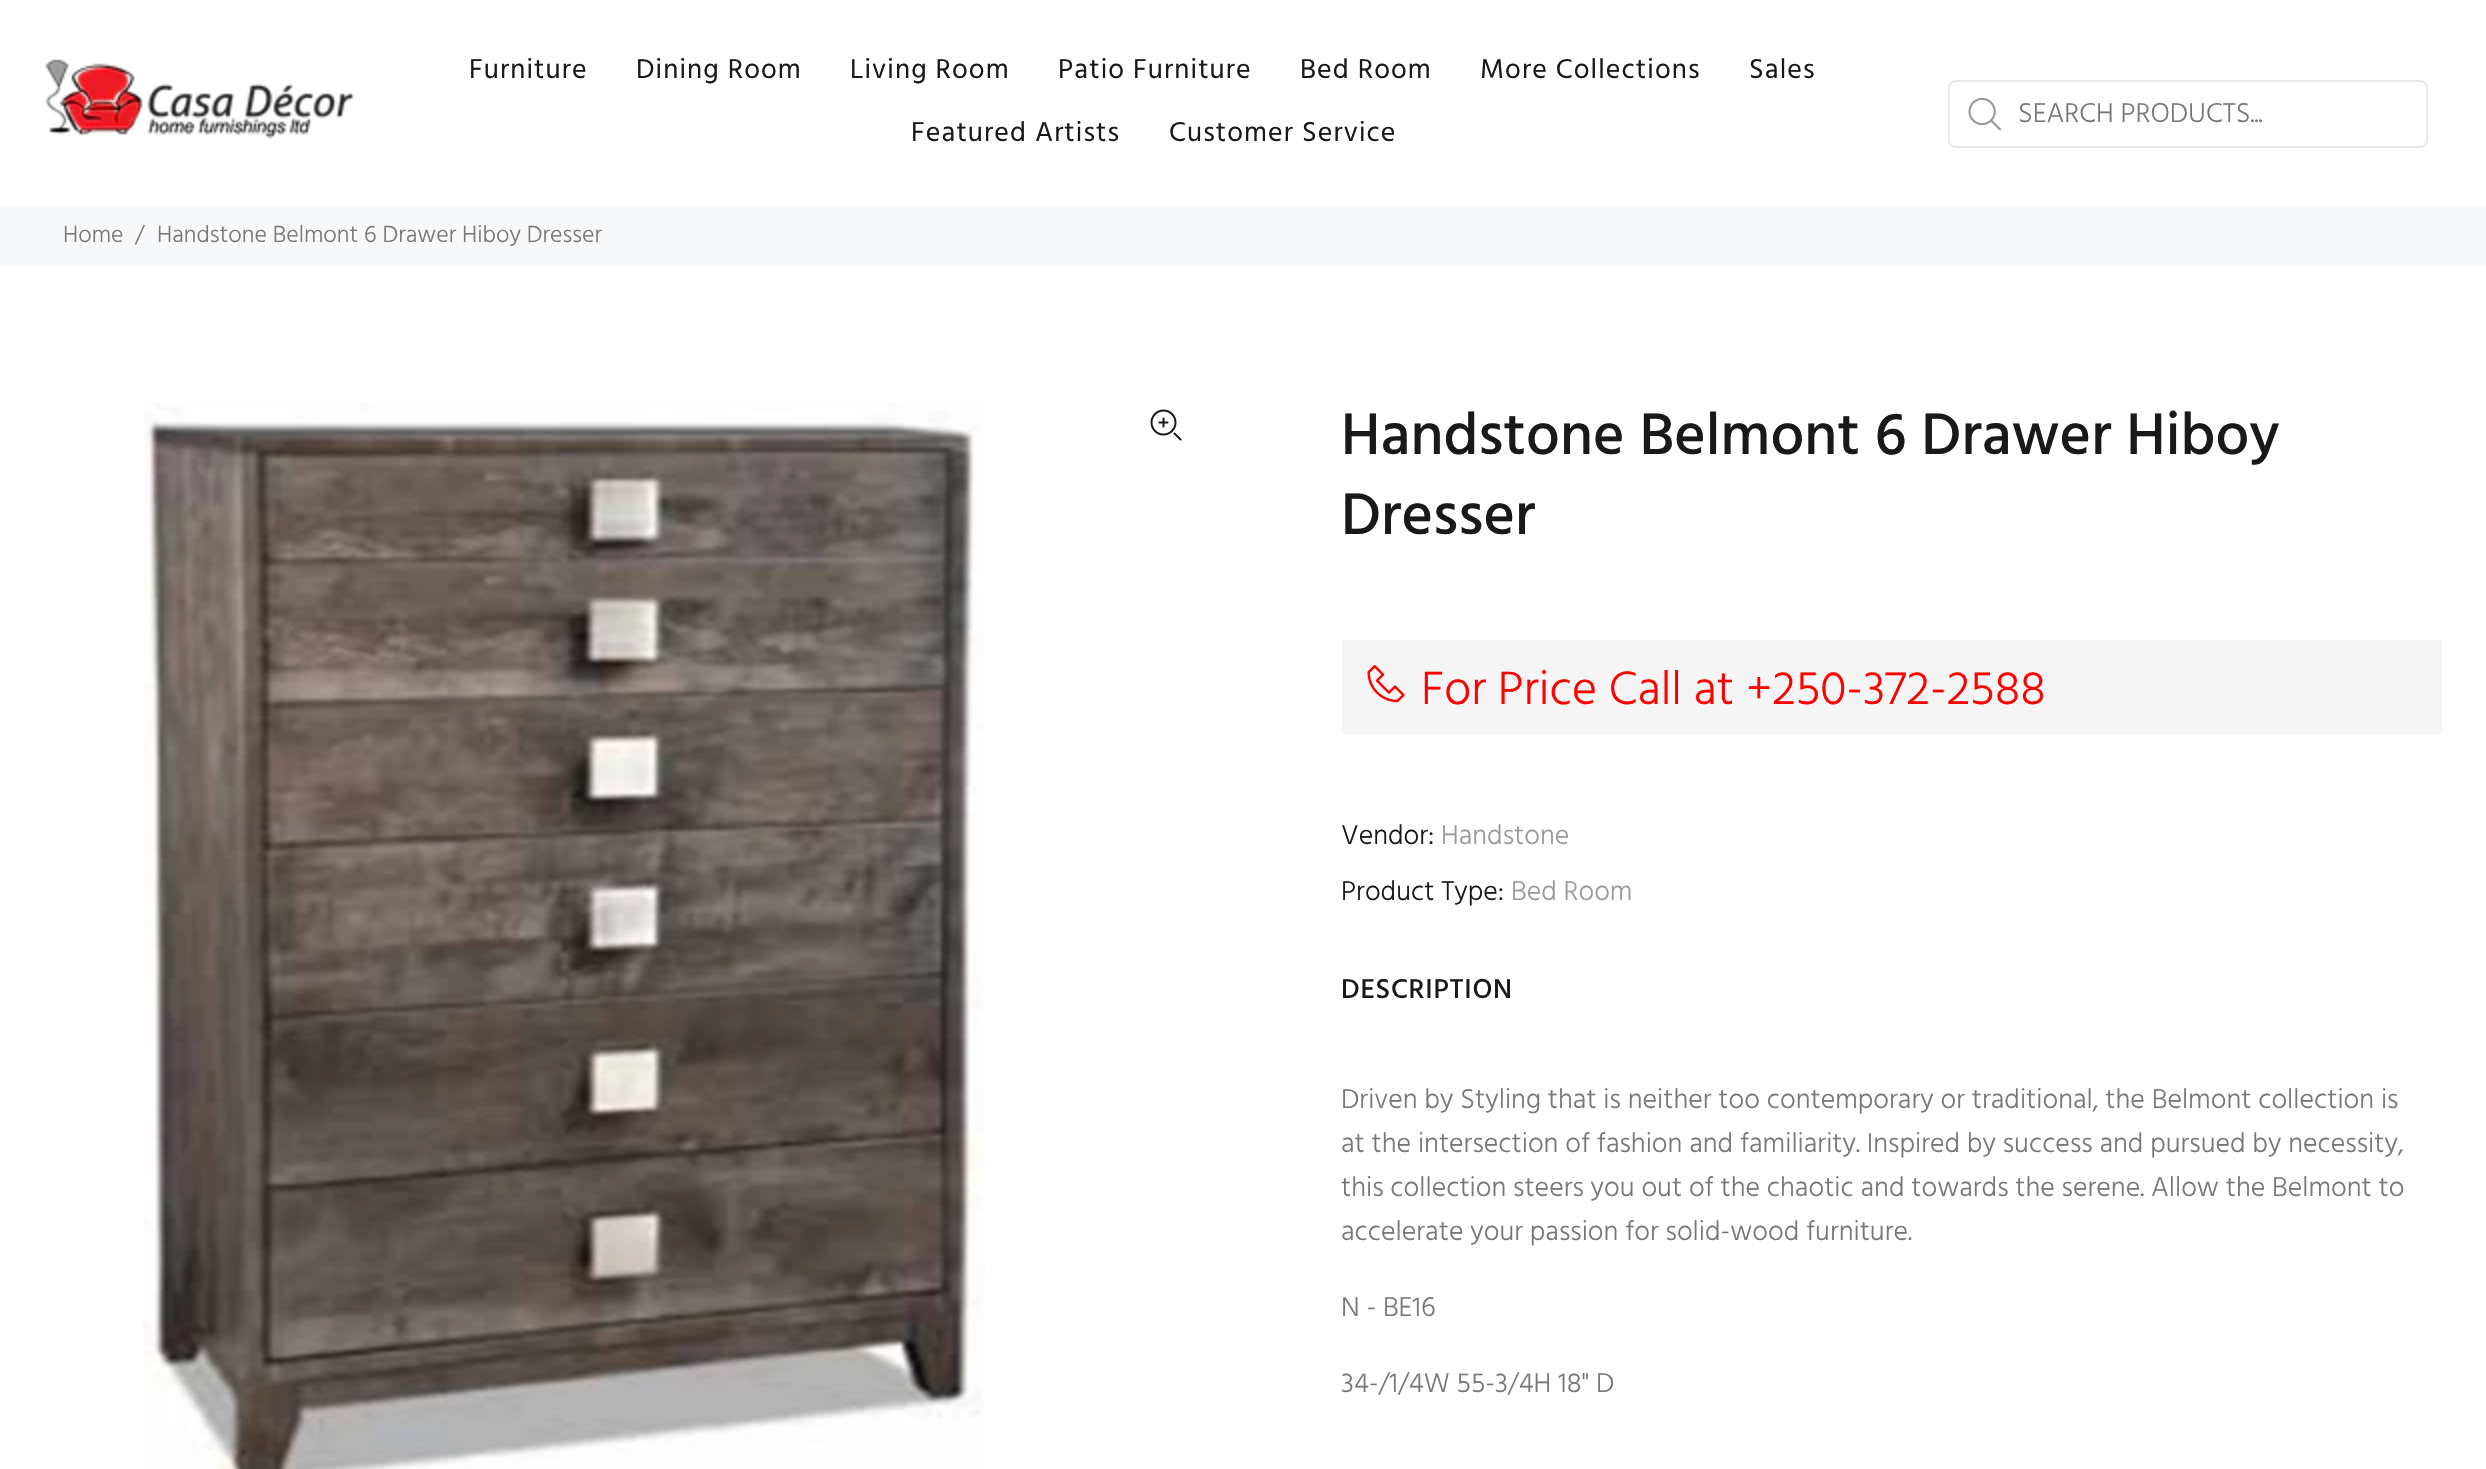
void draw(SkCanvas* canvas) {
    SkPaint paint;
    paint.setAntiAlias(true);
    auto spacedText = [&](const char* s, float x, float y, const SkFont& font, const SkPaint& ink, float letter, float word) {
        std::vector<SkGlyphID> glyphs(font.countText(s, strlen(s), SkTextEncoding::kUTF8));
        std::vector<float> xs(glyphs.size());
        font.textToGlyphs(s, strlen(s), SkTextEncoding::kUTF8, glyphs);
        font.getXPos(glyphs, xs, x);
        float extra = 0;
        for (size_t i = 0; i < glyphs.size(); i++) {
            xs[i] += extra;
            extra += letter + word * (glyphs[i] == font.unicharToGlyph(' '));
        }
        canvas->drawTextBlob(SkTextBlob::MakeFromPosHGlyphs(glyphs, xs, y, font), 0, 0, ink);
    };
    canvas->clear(0xFFFFFFFF);
    canvas->drawImageRect(SkImages::DeferredFromEncodedData(SkData::MakeFromFileName("img1.png")), SkRect::MakeXYWH(45, 59, 310, 80), SkSamplingOptions());
    SkFont font1(fontMgr->matchFamilyStyle("Hind", SkFontStyle::Normal()), 28);
    font1.setSubpixel(true);
    paint.setColor(0xFF191919);
    spacedText("Furniture", 469, 78, font1, paint, 1.1f, 0);
    spacedText("Dining Room", 636, 78, font1, paint, 1.1f, 0);
    spacedText("Living Room", 850, 78, font1, paint, 1.1f, 0);
    spacedText("Patio Furniture", 1058, 78, font1, paint, 1.1f, 0);
    spacedText("Bed Room", 1300, 78, font1, paint, 1.1f, 0);
    spacedText("More Collections", 1480, 78, font1, paint, 1.1f, 0);
    spacedText("Sales", 1749, 78, font1, paint, 1.1f, 0);
    spacedText("Featured Artists", 911, 141, font1, paint, 1.1f, 0);
    spacedText("Customer Service", 1169, 141, font1, paint, 1.1f, 0);
    paint.setStyle(SkPaint::kStroke_Style);
    paint.setStrokeWidth(2);
    paint.setColor(0xFFE9E7E7);
    canvas->drawRoundRect(SkRect::MakeXYWH(1949, 81, 478, 66), 7, 7, paint);
    canvas->drawImageRect(SkImages::DeferredFromEncodedData(SkData::MakeFromFileName("img2.png")), SkRect::MakeXYWH(1968, 97, 33, 34), SkSamplingOptions());
    SkFont font2(fontMgr->matchFamilyStyle("Hind", SkFontStyle(300, SkFontStyle::kNormal_Width, SkFontStyle::kUpright_Slant)), 28);
    font2.setSubpixel(true);
    paint.setStyle(SkPaint::kFill_Style);
    paint.setColor(0xFF777777);
    canvas->drawString("SEARCH PRODUCTS...", 2018, 122, font2, paint);
    paint.setColor(0xFFF7F8FA);
    canvas->drawRect(SkRect::MakeXYWH(0, 206, 2486, 60), paint);
    SkFont font3(fontMgr->matchFamilyStyle("Hind", SkFontStyle(300, SkFontStyle::kNormal_Width, SkFontStyle::kUpright_Slant)), 24);
    font3.setSubpixel(true);
    paint.setColor(0xFF777777);
    canvas->drawString("Home", 63, 242, font3, paint);
    canvas->drawString("/", 135, 242, font3, paint);
    canvas->drawString("Handstone Belmont 6 Drawer Hiboy Dresser", 157, 242, font3, paint);
    canvas->drawImageRect(SkImages::DeferredFromEncodedData(SkData::MakeFromFileName("img3.png")), SkRect::MakeXYWH(143, 402, 842, 1067), SkSamplingOptions());
    canvas->drawImageRect(SkImages::DeferredFromEncodedData(SkData::MakeFromFileName("img4.png")), SkRect::MakeXYWH(1150, 409, 32, 32), SkSamplingOptions());
    SkFont font4(fontMgr->matchFamilyStyle("Hind", SkFontStyle(500, SkFontStyle::kNormal_Width, SkFontStyle::kUpright_Slant)), 60);
    font4.setSubpixel(true);
    paint.setColor(0xFF191919);
    spacedText("Handstone Belmont 6 Drawer Hiboy", 1341, 454, font4, paint, 0.05f, 0);
    spacedText("Dresser", 1341, 534, font4, paint, 0.05f, 0);
    paint.setColor(0xFFF5F5F5);
    canvas->drawRect(SkRect::MakeXYWH(1342, 640, 1100, 94), paint);
    canvas->drawImageRect(SkImages::DeferredFromEncodedData(SkData::MakeFromFileName("img5.png")), SkRect::MakeXYWH(1367, 665, 38, 38), SkSamplingOptions());
    SkFont font5(fontMgr->matchFamilyStyle("Hind", SkFontStyle(300, SkFontStyle::kNormal_Width, SkFontStyle::kUpright_Slant)), 48);
    font5.setSubpixel(true);
    paint.setColor(0xFFFF0000);
    canvas->drawString("For Price Call at +250-372-2588", 1421, 704, font5, paint);
    paint.setColor(0xFF191919);
    canvas->drawString("Vendor:", 1341, 844, font2, paint);
    paint.setColor(0xFF999999);
    canvas->drawString("Handstone", 1441, 844, font2, paint);
    paint.setColor(0xFF191919);
    canvas->drawString("Product Type:", 1341, 900, font2, paint);
    paint.setColor(0xFF999999);
    canvas->drawString("Bed Room", 1511, 900, font2, paint);
    SkFont font6(fontMgr->matchFamilyStyle("Hind", SkFontStyle(500, SkFontStyle::kNormal_Width, SkFontStyle::kUpright_Slant)), 28);
    font6.setSubpixel(true);
    paint.setColor(0xFF191919);
    spacedText("DESCRIPTION", 1341, 998, font6, paint, 0.75f, 0);
    paint.setColor(0xFF777777);
    canvas->drawString("Driven by Styling that is neither too contemporary or traditional, the Belmont collection is", 1341, 1108, font2, paint);
    canvas->drawString("at the intersection of fashion and familiarity. Inspired by success and pursued by necessity,", 1341, 1152, font2, paint);
    canvas->drawString("this collection steers you out of the chaotic and towards the serene. Allow the Belmont to", 1341, 1196, font2, paint);
    canvas->drawString("accelerate your passion for solid-wood furniture.", 1341, 1240, font2, paint);
    canvas->drawString("N - BE16", 1341, 1316, font2, paint);
    canvas->drawString("34-/1/4W 55-3/4H 18\" D", 1341, 1392, font2, paint);
}
